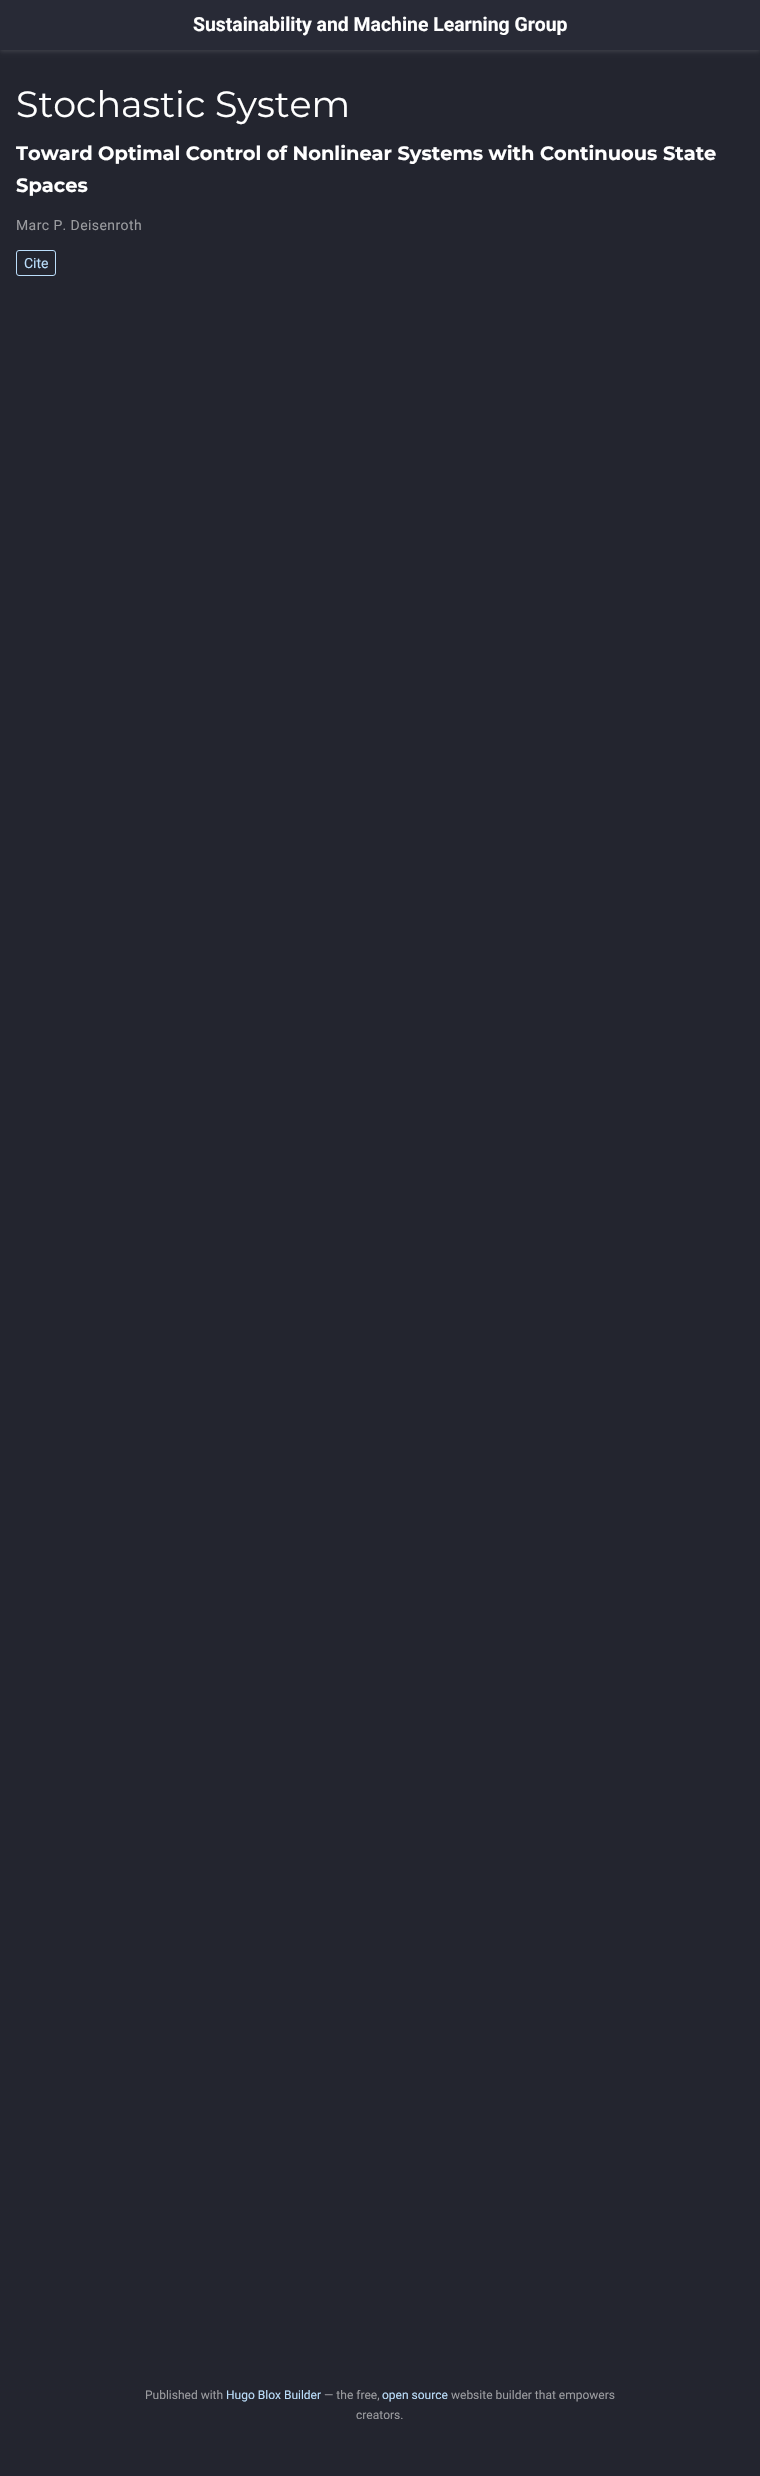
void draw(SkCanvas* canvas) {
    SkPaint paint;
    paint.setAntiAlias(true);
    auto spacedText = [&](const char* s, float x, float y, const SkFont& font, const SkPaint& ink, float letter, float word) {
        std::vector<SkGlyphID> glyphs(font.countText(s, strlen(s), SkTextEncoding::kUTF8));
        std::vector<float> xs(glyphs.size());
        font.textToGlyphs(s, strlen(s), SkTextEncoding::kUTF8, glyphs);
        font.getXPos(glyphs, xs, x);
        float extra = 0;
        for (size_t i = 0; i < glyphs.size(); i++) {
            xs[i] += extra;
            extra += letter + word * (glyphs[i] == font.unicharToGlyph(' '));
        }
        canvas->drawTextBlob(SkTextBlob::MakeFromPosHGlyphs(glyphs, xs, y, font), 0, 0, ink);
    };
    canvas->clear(0xFF23252F);
    paint.setColor(0x1CFFFFFF);
    paint.setMaskFilter(SkMaskFilter::MakeBlur(kNormal_SkBlurStyle, 2));
    canvas->drawRect(SkRect::MakeXYWH(0, 2, 760, 50), paint);
    paint.setMaskFilter(nullptr);
    paint.setColor(0xFF282A36);
    canvas->drawRect(SkRect::MakeXYWH(0, 0, 760, 50), paint);
    SkFont font1(fontMgr->matchFamilyStyle("Roboto", SkFontStyle::Bold()), 19.4f);
    font1.setSubpixel(true);
    paint.setColor(0xFFFFFFFF);
    canvas->drawString("Sustainability and Machine Learning Group", 193, 31, font1, paint);
    SkFont font2(fontMgr->matchFamilyStyle("Montserrat", SkFontStyle::Normal()), 36.4f);
    font2.setSubpixel(true);
    canvas->drawString("Stochastic System", 16, 117, font2, paint);
    SkFont font3(fontMgr->matchFamilyStyle("Montserrat", SkFontStyle::Bold()), 19.4f);
    font3.setSubpixel(true);
    canvas->drawString("Toward Optimal Control of Nonlinear Systems with Continuous State", 16, 160, font3, paint);
    canvas->drawString("Spaces", 16, 192, font3, paint);
    SkFont font4(fontMgr->matchFamilyStyle("Roboto", SkFontStyle::Normal()), 14);
    font4.setSubpixel(true);
    paint.setColor(0xFF9A9B9F);
    spacedText("Marc P. Deisenroth", 16, 230, font4, paint, 0.4f, 0);
    paint.setStyle(SkPaint::kStroke_Style);
    paint.setStrokeWidth(1);
    paint.setColor(0xFFBBDEFB);
    canvas->drawRoundRect(SkRect::MakeXYWH(16.5f, 250.5f, 39, 25), 2.5f, 2.5f, paint);
    paint.setStyle(SkPaint::kFill_Style);
    canvas->drawString("Cite", 24, 268, font4, paint);
    SkFont font5(fontMgr->matchFamilyStyle("Roboto", SkFontStyle::Normal()), 12);
    font5.setSubpixel(true);
    paint.setColor(0xFF9A9B9F);
    canvas->drawString("Published with", 145, 2399, font5, paint);
    paint.setColor(0xFFBBDEFB);
    canvas->drawString("Hugo Blox Builder", 226, 2399, font5, paint);
    paint.setColor(0xFF9A9B9F);
    canvas->drawString("— the free,", 324, 2399, font5, paint);
    paint.setColor(0xFFBBDEFB);
    canvas->drawString("open source", 382, 2399, font5, paint);
    paint.setColor(0xFF9A9B9F);
    canvas->drawString("website builder that empowers", 451, 2399, font5, paint);
    canvas->drawString("creators.", 356, 2419, font5, paint);
}
